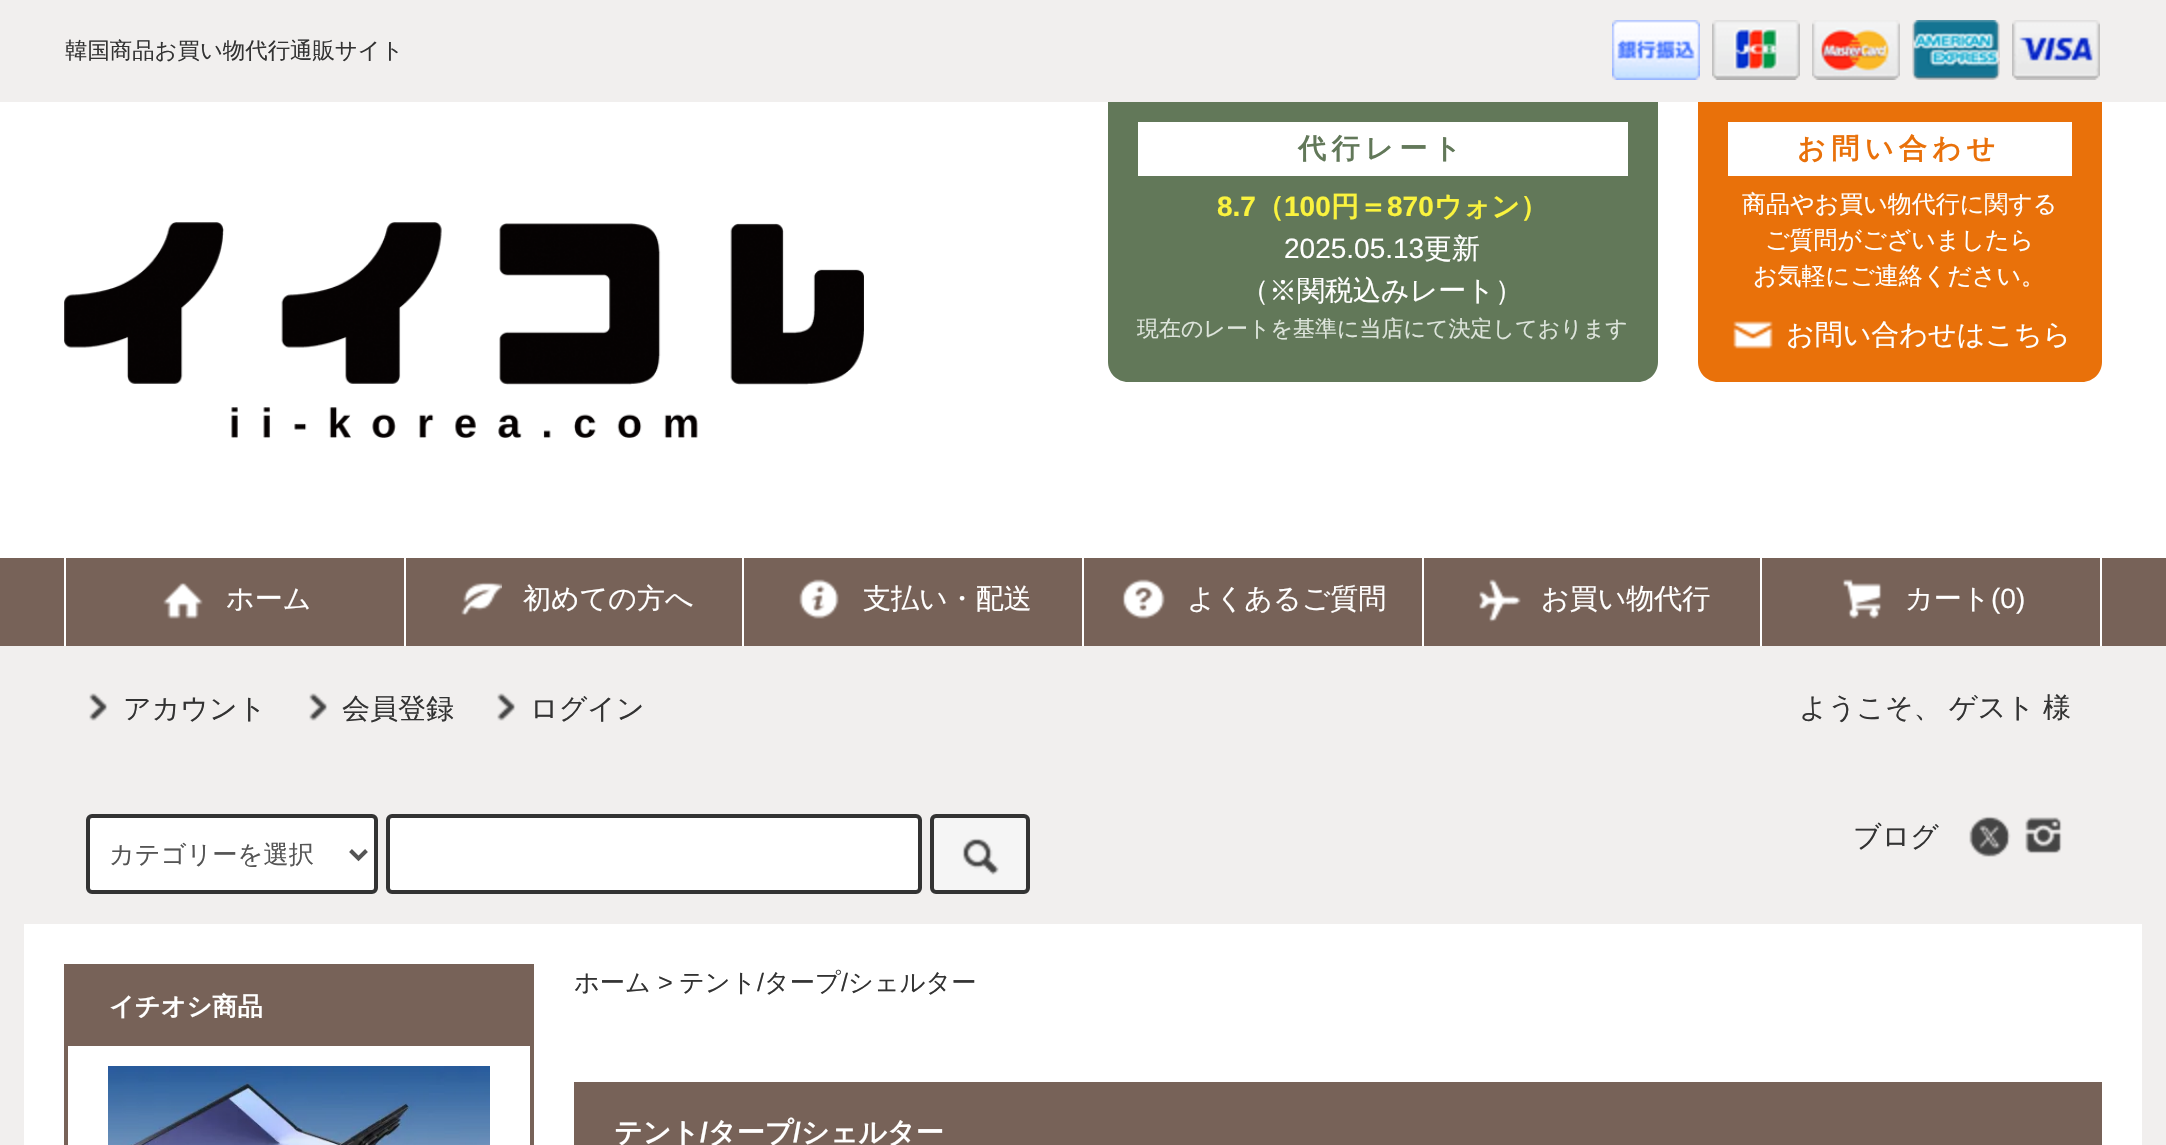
void draw(SkCanvas* canvas) {
    SkPaint paint;
    paint.setAntiAlias(true);
    auto spacedText = [&](const char* s, float x, float y, const SkFont& font, const SkPaint& ink, float letter, float word) {
        std::vector<SkGlyphID> glyphs(font.countText(s, strlen(s), SkTextEncoding::kUTF8));
        std::vector<float> xs(glyphs.size());
        font.textToGlyphs(s, strlen(s), SkTextEncoding::kUTF8, glyphs);
        font.getXPos(glyphs, xs, x);
        float extra = 0;
        for (size_t i = 0; i < glyphs.size(); i++) {
            xs[i] += extra;
            extra += letter + word * (glyphs[i] == font.unicharToGlyph(' '));
        }
        canvas->drawTextBlob(SkTextBlob::MakeFromPosHGlyphs(glyphs, xs, y, font), 0, 0, ink);
    };
    canvas->clear(0xFFF1EFEE);
    SkFont font1(fontMgr->matchFamilyStyle("WenQuanYi Zen Hei", SkFontStyle(500, SkFontStyle::kNormal_Width, SkFontStyle::kUpright_Slant)), 22.4f);
    font1.setSubpixel(true);
    paint.setColor(0xFF333333);
    canvas->drawString("韓国商品お買い物代行通販サイト", 65, 58, font1, paint);
    canvas->drawImageRect(SkImages::DeferredFromEncodedData(SkData::MakeFromFileName("img1.png")), SkRect::MakeXYWH(1612, 20, 88, 60), SkSamplingOptions());
    canvas->drawImageRect(SkImages::DeferredFromEncodedData(SkData::MakeFromFileName("img2.png")), SkRect::MakeXYWH(1712, 20, 88, 60), SkSamplingOptions());
    canvas->drawImageRect(SkImages::DeferredFromEncodedData(SkData::MakeFromFileName("img3.png")), SkRect::MakeXYWH(1812, 20, 88, 60), SkSamplingOptions());
    canvas->drawImageRect(SkImages::DeferredFromEncodedData(SkData::MakeFromFileName("img4.png")), SkRect::MakeXYWH(1912, 20, 88, 60), SkSamplingOptions());
    canvas->drawImageRect(SkImages::DeferredFromEncodedData(SkData::MakeFromFileName("img5.png")), SkRect::MakeXYWH(2012, 20, 88, 60), SkSamplingOptions());
    paint.setColor(0xFFFFFFFF);
    canvas->drawRect(SkRect::MakeXYWH(0, 102, 2166, 456), paint);
    canvas->drawImageRect(SkImages::DeferredFromEncodedData(SkData::MakeFromFileName("img6.png")), SkRect::MakeXYWH(64, 222, 800, 216), SkSamplingOptions());
    paint.setColor(0xFF627859);
    canvas->drawPath(SkPathBuilder().moveTo(1108, 102).lineTo(1658, 102).lineTo(1658, 362).cubicTo(1658, 373, 1649, 382, 1638, 382).lineTo(1128, 382).cubicTo(1117, 382, 1108, 373, 1108, 362).close().detach(), paint);
    paint.setColor(0xFFFFFFFF);
    canvas->drawRect(SkRect::MakeXYWH(1138, 122, 490, 54), paint);
    SkFont font2(fontMgr->matchFamilyStyle("WenQuanYi Zen Hei", SkFontStyle::Bold()), 28);
    font2.setSubpixel(true);
    paint.setColor(0xFF627859);
    spacedText("代行レート", 1298, 158, font2, paint, 5.5f, 0);
    SkFont font3(fontMgr->matchFamilyStyle("Liberation Sans", SkFontStyle::Bold()), 28);
    font3.setSubpixel(true);
    paint.setColor(0xFFFAF33E);
    canvas->drawString("8.7", 1217, 216, font3, paint);
    canvas->drawString("（", 1256, 216, font2, paint);
    canvas->drawString("100", 1284, 216, font3, paint);
    canvas->drawString("円＝", 1331, 216, font2, paint);
    canvas->drawString("870", 1387, 216, font3, paint);
    canvas->drawString("ウォン）", 1434, 216, font2, paint);
    SkFont font4(fontMgr->matchFamilyStyle("Liberation Sans", SkFontStyle::Normal()), 28);
    font4.setSubpixel(true);
    paint.setColor(0xFFFFFFFF);
    canvas->drawString("2025.05.13", 1284, 258, font4, paint);
    SkFont font5(fontMgr->matchFamilyStyle("WenQuanYi Zen Hei", SkFontStyle(500, SkFontStyle::kNormal_Width, SkFontStyle::kUpright_Slant)), 28);
    font5.setSubpixel(true);
    canvas->drawString("更新", 1424, 258, font5, paint);
    canvas->drawString("（※関税込みレート）", 1241, 300, font5, paint);
    SkFont font6(fontMgr->matchFamilyStyle("WenQuanYi Zen Hei", SkFontStyle(500, SkFontStyle::kNormal_Width, SkFontStyle::kUpright_Slant)), 22);
    font6.setSubpixel(true);
    paint.setColor(0xFFDEE5DC);
    canvas->drawString("現在のレートを基準に当店にて決定しております", 1137, 336, font6, paint);
    paint.setColor(0xFFE9710A);
    canvas->drawPath(SkPathBuilder().moveTo(1698, 102).lineTo(2102, 102).lineTo(2102, 362).cubicTo(2102, 373, 2093, 382, 2082, 382).lineTo(1718, 382).cubicTo(1707, 382, 1698, 373, 1698, 362).close().detach(), paint);
    paint.setColor(0xFFFFFFFF);
    canvas->drawRect(SkRect::MakeXYWH(1728, 122, 344, 54), paint);
    paint.setColor(0xFFE9710A);
    spacedText("お問い合わせ", 1797, 158, font2, paint, 5.5f, 0);
    SkFont font7(fontMgr->matchFamilyStyle("WenQuanYi Zen Hei", SkFontStyle(500, SkFontStyle::kNormal_Width, SkFontStyle::kUpright_Slant)), 24);
    font7.setSubpixel(true);
    paint.setColor(0xFFFFFFFF);
    canvas->drawString("商品やお買い物代行に関する", 1742, 212, font7, paint);
    canvas->drawString("ご質問がございましたら", 1765, 248, font7, paint);
    canvas->drawString("お気軽にご連絡ください。", 1753, 284, font7, paint);
    canvas->drawImageRect(SkImages::DeferredFromEncodedData(SkData::MakeFromFileName("img7.png")), SkRect::MakeXYWH(1733, 321, 40, 28), SkSamplingOptions());
    canvas->drawString("お問い合わせはこちら", 1786, 344, font5, paint);
    paint.setColor(0xFF776258);
    canvas->drawRect(SkRect::MakeXYWH(0, 558, 2166, 88), paint);
    paint.setColor(0xFFFFFFFF);
    canvas->drawRect(SkRect::MakeXYWH(64, 558, 2, 88), paint);
    canvas->drawRect(SkRect::MakeXYWH(404, 558, 2, 88), paint);
    canvas->drawImageRect(SkImages::DeferredFromEncodedData(SkData::MakeFromFileName("img8.png")), SkRect::MakeXYWH(163, 582, 40, 37), SkSamplingOptions());
    canvas->drawString("ホーム", 226, 608, font5, paint);
    canvas->drawRect(SkRect::MakeXYWH(742, 558, 2, 88), paint);
    canvas->drawImageRect(SkImages::DeferredFromEncodedData(SkData::MakeFromFileName("img9.png")), SkRect::MakeXYWH(461, 582, 41, 34), SkSamplingOptions());
    canvas->drawString("初めての方へ", 523, 608, font5, paint);
    canvas->drawRect(SkRect::MakeXYWH(1082, 558, 2, 88), paint);
    canvas->drawImageRect(SkImages::DeferredFromEncodedData(SkData::MakeFromFileName("img10.png")), SkRect::MakeXYWH(799, 579, 40, 40), SkSamplingOptions());
    canvas->drawString("支払い・配送", 863, 608, font5, paint);
    canvas->drawRect(SkRect::MakeXYWH(1422, 558, 2, 88), paint);
    canvas->drawImageRect(SkImages::DeferredFromEncodedData(SkData::MakeFromFileName("img11.png")), SkRect::MakeXYWH(1122, 579, 43, 40), SkSamplingOptions());
    canvas->drawString("よくあるご質問", 1187, 608, font5, paint);
    canvas->drawRect(SkRect::MakeXYWH(1760, 558, 2, 88), paint);
    canvas->drawImageRect(SkImages::DeferredFromEncodedData(SkData::MakeFromFileName("img12.png")), SkRect::MakeXYWH(1479, 579, 42, 43), SkSamplingOptions());
    canvas->drawString("お買い物代行", 1541, 608, font5, paint);
    canvas->drawRect(SkRect::MakeXYWH(2100, 558, 2, 88), paint);
    canvas->drawImageRect(SkImages::DeferredFromEncodedData(SkData::MakeFromFileName("img13.png")), SkRect::MakeXYWH(1842, 579, 40, 40), SkSamplingOptions());
    canvas->drawString("カート", 1905, 608, font5, paint);
    canvas->drawString("(0)", 1991, 608, font4, paint);
    canvas->drawImageRect(SkImages::DeferredFromEncodedData(SkData::MakeFromFileName("img14.png")), SkRect::MakeXYWH(89, 693, 19, 28), SkSamplingOptions());
    paint.setColor(0xFF333333);
    canvas->drawString("アカウント", 123, 718, font5, paint);
    canvas->drawImageRect(SkImages::DeferredFromEncodedData(SkData::MakeFromFileName("img14.png")), SkRect::MakeXYWH(309, 693, 19, 28), SkSamplingOptions());
    canvas->drawString("会員登録", 342, 718, font5, paint);
    canvas->drawImageRect(SkImages::DeferredFromEncodedData(SkData::MakeFromFileName("img14.png")), SkRect::MakeXYWH(497, 693, 19, 28), SkSamplingOptions());
    canvas->drawString("ログイン", 530, 718, font5, paint);
    canvas->drawString("ようこそ、", 1799, 717, font5, paint);
    canvas->drawString("ゲスト", 1949, 717, font5, paint);
    canvas->drawString("様", 2043, 717, font5, paint);
    canvas->drawString("ブログ", 1853, 846, font5, paint);
    canvas->drawImageRect(SkImages::DeferredFromEncodedData(SkData::MakeFromFileName("img15.png")), SkRect::MakeXYWH(1969, 816, 42, 41), SkSamplingOptions());
    canvas->drawImageRect(SkImages::DeferredFromEncodedData(SkData::MakeFromFileName("img16.png")), SkRect::MakeXYWH(2025, 817, 37, 37), SkSamplingOptions());
    paint.setColor(0xFFFFFFFF);
    canvas->drawRoundRect(SkRect::MakeXYWH(88, 816, 288, 76), 4, 4, paint);
    paint.setStyle(SkPaint::kStroke_Style);
    paint.setStrokeWidth(4);
    paint.setColor(0xFF333333);
    canvas->drawRoundRect(SkRect::MakeXYWH(88, 816, 288, 76), 4, 4, paint);
    paint.setColor(0xFF555555);
    canvas->drawPath(SkPathBuilder().moveTo(350.5f, 850.5f).lineTo(358.5f, 858.5f).lineTo(366.5f, 850.5f).detach(), paint);
    SkFont font8(fontMgr->matchFamilyStyle("WenQuanYi Zen Hei", SkFontStyle(500, SkFontStyle::kNormal_Width, SkFontStyle::kUpright_Slant)), 25.25f);
    font8.setSubpixel(true);
    paint.setStyle(SkPaint::kFill_Style);
    canvas->drawString("カテゴリーを選択", 109, 863, font8, paint);
    paint.setColor(0xFFFFFFFF);
    canvas->drawRoundRect(SkRect::MakeXYWH(388, 816, 532, 76), 4, 4, paint);
    paint.setStyle(SkPaint::kStroke_Style);
    paint.setColor(0xFF333333);
    canvas->drawRoundRect(SkRect::MakeXYWH(388, 816, 532, 76), 4, 4, paint);
    paint.setStyle(SkPaint::kFill_Style);
    paint.setColor(0xFFF5F5F5);
    canvas->drawRoundRect(SkRect::MakeXYWH(932, 816, 96, 76), 4, 4, paint);
    paint.setStyle(SkPaint::kStroke_Style);
    paint.setColor(0xFF333333);
    canvas->drawRoundRect(SkRect::MakeXYWH(932, 816, 96, 76), 4, 4, paint);
    canvas->drawImageRect(SkImages::DeferredFromEncodedData(SkData::MakeFromFileName("img17.png")), SkRect::MakeXYWH(962, 838, 37, 37), SkSamplingOptions());
    paint.setStyle(SkPaint::kFill_Style);
    paint.setColor(0xFFFFFFFF);
    canvas->drawRect(SkRect::MakeXYWH(24, 924, 2118, 221), paint);
    paint.setStyle(SkPaint::kStroke_Style);
    paint.setColor(0xFF776258);
    canvas->drawRect(SkRect::MakeXYWH(66, 966, 466, 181), paint);
    paint.setStyle(SkPaint::kFill_Style);
    canvas->drawRect(SkRect::MakeXYWH(68, 968, 462, 78), paint);
    SkFont font9(fontMgr->matchFamilyStyle("WenQuanYi Zen Hei", SkFontStyle::Bold()), 25.25f);
    font9.setSubpixel(true);
    paint.setColor(0xFFFFFFFF);
    canvas->drawString("イチオシ商品", 109, 1015, font9, paint);
    canvas->drawImageRect(SkImages::DeferredFromEncodedData(SkData::MakeFromFileName("img18.png")), SkRect::MakeXYWH(108, 1066, 382, 79), SkSamplingOptions());
    paint.setColor(0xFF333333);
    canvas->drawString("ホーム", 574, 991, font8, paint);
    SkFont font10(fontMgr->matchFamilyStyle("Liberation Sans", SkFontStyle::Normal()), 25.25f);
    font10.setSubpixel(true);
    canvas->drawString(">", 658, 991, font10, paint);
    canvas->drawString("テント", 679, 991, font8, paint);
    canvas->drawString("/", 757, 991, font10, paint);
    canvas->drawString("タープ", 764, 991, font8, paint);
    canvas->drawString("/", 841, 991, font10, paint);
    canvas->drawString("シェルター", 848, 991, font8, paint);
    paint.setColor(0xFF776258);
    canvas->drawRect(SkRect::MakeXYWH(574, 1082, 1528, 63), paint);
    paint.setColor(0xFFFFFFFF);
    canvas->drawString("テント", 614, 1142, font2, paint);
    canvas->drawString("/", 700, 1142, font3, paint);
    canvas->drawString("タープ", 708, 1142, font2, paint);
    canvas->drawString("/", 793, 1142, font3, paint);
    canvas->drawString("シェルター", 801, 1142, font2, paint);
}
